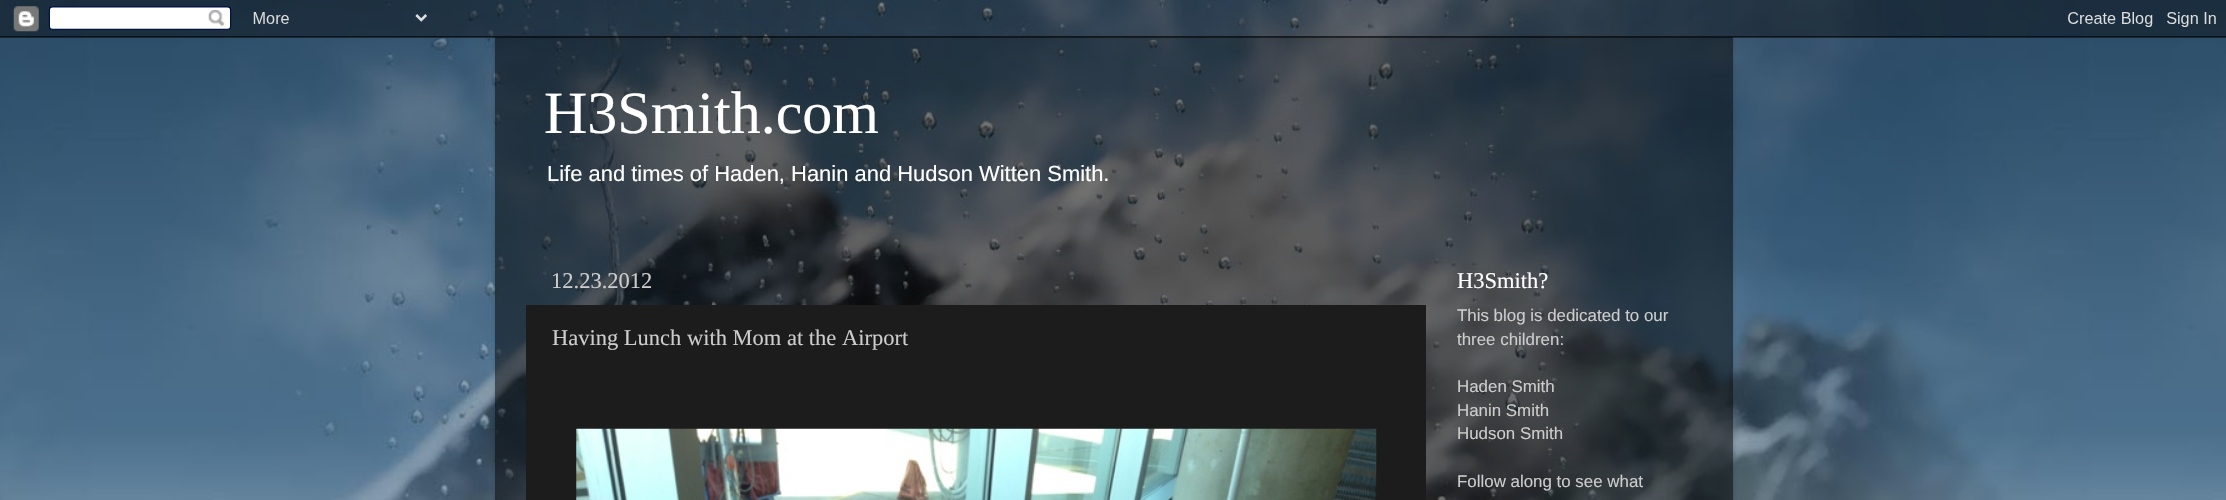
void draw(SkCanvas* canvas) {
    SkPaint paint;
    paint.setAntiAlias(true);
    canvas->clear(0xFFFFFFFF);
    canvas->drawImageRect(SkImages::DeferredFromEncodedData(SkData::MakeFromFileName("img1.png")), SkRect::MakeXYWH(0, 0, 2226, 500), SkSamplingOptions());
    canvas->save();
    canvas->clipPath(SkPathBuilder(SkPathFillType::kEvenOdd).moveTo(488, 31).lineTo(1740, 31).lineTo(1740, 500).lineTo(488, 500).close().moveTo(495, 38).lineTo(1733, 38).lineTo(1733, 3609).lineTo(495, 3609).close().detach(), true);
    paint.setColor(0x26000000);
    paint.setMaskFilter(SkMaskFilter::MakeBlur(kNormal_SkBlurStyle, 2));
    canvas->drawRect(SkRect::MakeXYWH(495, 38, 1238, 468), paint);
    paint.setMaskFilter(nullptr);
    canvas->restore();
    paint.setColor(0x80000000);
    canvas->drawRect(SkRect::MakeXYWH(495, 37, 1238, 463), paint);
    canvas->drawImageRect(SkImages::DeferredFromEncodedData(SkData::MakeFromFileName("img2.png")), SkRect::MakeXYWH(0, 0, 2226, 38), SkSamplingOptions());
    SkFont font1(fontMgr->matchFamilyStyle("Liberation Serif", SkFontStyle::Normal()), 60);
    font1.setSubpixel(true);
    paint.setColor(0xFFFFFFFF);
    canvas->drawString("H3Smith.com", 544, 133, font1, paint);
    SkFont font2(fontMgr->matchFamilyStyle("Liberation Sans", SkFontStyle::Normal()), 21.95f);
    font2.setSubpixel(true);
    canvas->drawString("Life and times of Haden, Hanin and Hudson Witten Smith.", 547, 181, font2, paint);
    SkFont font3(fontMgr->matchFamilyStyle("Liberation Serif", SkFontStyle::Normal()), 22.5f);
    font3.setSubpixel(true);
    paint.setColor(0xFFCCCCCC);
    canvas->drawString("12.23.2012", 551, 288, font3, paint);
    paint.setColor(0xFF1C1C1C);
    canvas->drawRect(SkRect::MakeXYWH(526, 305, 900, 195), paint);
    paint.setColor(0xFFCCCCCC);
    canvas->drawString("Having Lunch with Mom at the Airport", 552, 345, font3, paint);
    canvas->drawImageRect(SkImages::DeferredFromEncodedData(SkData::MakeFromFileName("img3.png")), SkRect::MakeXYWH(576, 428, 801, 72), SkSamplingOptions());
    paint.setColor(0xFFFFFFFF);
    canvas->drawString("H3Smith?", 1457, 288, font3, paint);
    SkFont font4(fontMgr->matchFamilyStyle("Liberation Sans", SkFontStyle::Normal()), 16.9f);
    font4.setSubpixel(true);
    paint.setColor(0xFFCCCCCC);
    canvas->drawString("This blog is dedicated to our", 1457, 321, font4, paint);
    canvas->drawString("three children:", 1457, 345, font4, paint);
    canvas->drawString("Haden Smith", 1457, 392, font4, paint);
    canvas->drawString("Hanin Smith", 1457, 416, font4, paint);
    canvas->drawString("Hudson Smith", 1457, 439, font4, paint);
    canvas->drawString("Follow along to see what", 1457, 487, font4, paint);
}
